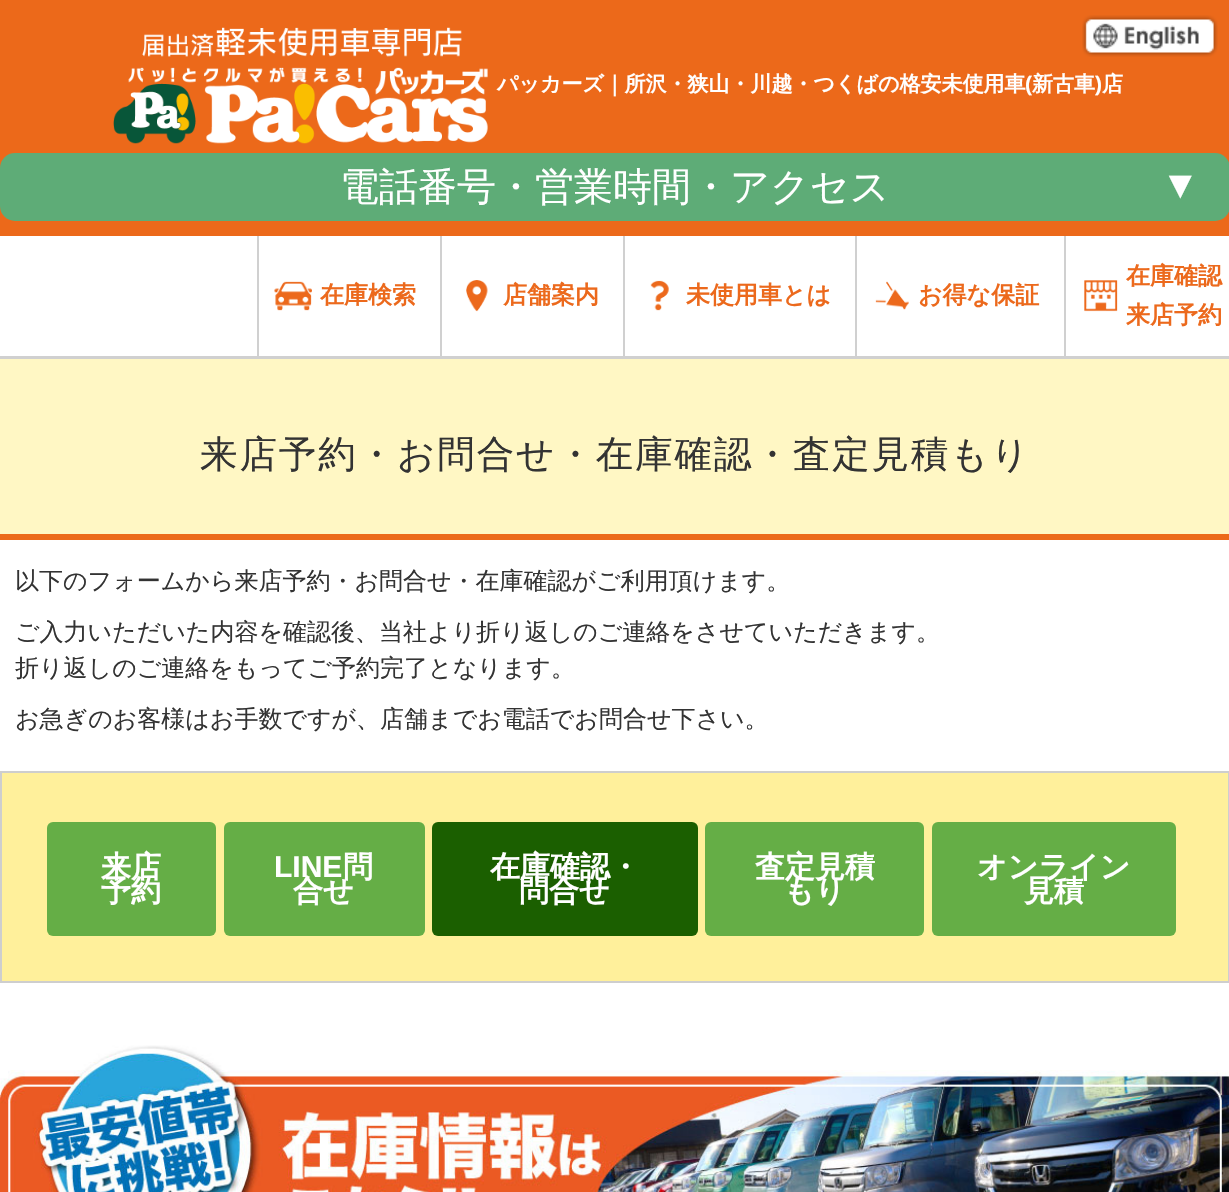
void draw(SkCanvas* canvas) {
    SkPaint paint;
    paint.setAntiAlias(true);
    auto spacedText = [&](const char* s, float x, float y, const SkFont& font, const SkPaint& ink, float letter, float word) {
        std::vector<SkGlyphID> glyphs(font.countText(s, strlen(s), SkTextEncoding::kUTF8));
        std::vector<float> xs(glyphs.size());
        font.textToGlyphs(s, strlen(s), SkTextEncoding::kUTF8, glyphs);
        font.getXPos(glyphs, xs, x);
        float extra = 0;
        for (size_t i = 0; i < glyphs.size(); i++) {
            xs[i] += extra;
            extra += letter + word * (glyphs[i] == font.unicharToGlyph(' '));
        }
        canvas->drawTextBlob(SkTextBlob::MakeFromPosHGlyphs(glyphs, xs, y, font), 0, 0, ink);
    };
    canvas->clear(0xFFFFFFFF);
    paint.setColor(0xFFEC691A);
    canvas->drawRect(SkRect::MakeXYWH(0, 0, 1229, 236), paint);
    canvas->drawImageRect(SkImages::DeferredFromEncodedData(SkData::MakeFromFileName("img1.png")), SkRect::MakeXYWH(1082, 15, 136, 42), SkSamplingOptions());
    canvas->drawImageRect(SkImages::DeferredFromEncodedData(SkData::MakeFromFileName("img2.png")), SkRect::MakeXYWH(113, 27, 375, 117), SkSamplingOptions());
    SkFont font1(fontMgr->matchFamilyStyle("WenQuanYi Zen Hei", SkFontStyle::Bold()), 21);
    font1.setSubpixel(true);
    paint.setColor(0xFFFFFFFF);
    canvas->drawString("パッカーズ｜所沢・狭山・川越・つくばの格安未使用車", 497, 91, font1, paint);
    SkFont font2(fontMgr->matchFamilyStyle("Liberation Sans", SkFontStyle::Bold()), 21);
    font2.setSubpixel(true);
    canvas->drawString("(", 1025, 91, font2, paint);
    canvas->drawString("新古車", 1032, 91, font1, paint);
    canvas->drawString(")", 1095, 91, font2, paint);
    canvas->drawString("店", 1102, 91, font1, paint);
    paint.setColor(0xFF5EAC77);
    canvas->drawRoundRect(SkRect::MakeXYWH(0, 153, 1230, 68), 15, 15, paint);
    SkFont font3(fontMgr->matchFamilyStyle("WenQuanYi Zen Hei", SkFontStyle(500, SkFontStyle::kNormal_Width, SkFontStyle::kUpright_Slant)), 39);
    font3.setSubpixel(true);
    paint.setColor(0xFFFFFFFF);
    canvas->drawString("電話番号・営業時間・アクセス", 340, 200, font3, paint);
    SkFont font4(fontMgr->matchFamilyStyle("Liberation Sans", SkFontStyle::Normal()), 39);
    font4.setSubpixel(true);
    canvas->drawString("▼", 1161, 198, font4, paint);
    paint.setColor(0xFFD0D0D0);
    canvas->drawRect(SkRect::MakeXYWH(0, 356, 1229, 3), paint);
    canvas->drawRect(SkRect::MakeXYWH(257, 236, 2, 120), paint);
    canvas->drawImageRect(SkImages::DeferredFromEncodedData(SkData::MakeFromFileName("img3.png")), SkRect::MakeXYWH(274, 281, 38, 30), SkSamplingOptions());
    SkFont font5(fontMgr->matchFamilyStyle("WenQuanYi Zen Hei", SkFontStyle::Bold()), 24);
    font5.setSubpixel(true);
    paint.setColor(0xFFEC691C);
    canvas->drawString("在庫検索", 320, 303, font5, paint);
    paint.setColor(0xFFD0D0D0);
    canvas->drawRect(SkRect::MakeXYWH(440, 236, 2, 120), paint);
    canvas->drawImageRect(SkImages::DeferredFromEncodedData(SkData::MakeFromFileName("img4.png")), SkRect::MakeXYWH(466, 280, 22, 32), SkSamplingOptions());
    paint.setColor(0xFFEC691C);
    canvas->drawString("店舗案内", 503, 303, font5, paint);
    paint.setColor(0xFFD0D0D0);
    canvas->drawRect(SkRect::MakeXYWH(623, 236, 2, 120), paint);
    canvas->drawImageRect(SkImages::DeferredFromEncodedData(SkData::MakeFromFileName("img5.png")), SkRect::MakeXYWH(650, 280, 19, 31), SkSamplingOptions());
    paint.setColor(0xFFEC691C);
    canvas->drawString("未使用車とは", 686, 303, font5, paint);
    paint.setColor(0xFFD0D0D0);
    canvas->drawRect(SkRect::MakeXYWH(855, 236, 2, 120), paint);
    canvas->drawImageRect(SkImages::DeferredFromEncodedData(SkData::MakeFromFileName("img6.png")), SkRect::MakeXYWH(875, 281, 34, 29), SkSamplingOptions());
    paint.setColor(0xFFEC691C);
    canvas->drawString("お得な保証", 918, 303, font5, paint);
    paint.setColor(0xFFD0D0D0);
    canvas->drawRect(SkRect::MakeXYWH(1064, 236, 2, 120), paint);
    canvas->drawImageRect(SkImages::DeferredFromEncodedData(SkData::MakeFromFileName("img7.png")), SkRect::MakeXYWH(1084, 280, 34, 32), SkSamplingOptions());
    paint.setColor(0xFFEC691C);
    canvas->drawString("在庫確認", 1126, 284, font5, paint);
    canvas->drawString("来店予約", 1126, 323, font5, paint);
    paint.setColor(0xFFFFF7C4);
    canvas->drawRect(SkRect::MakeXYWH(0, 359, 1229, 175), paint);
    paint.setColor(0xFFEC6A1A);
    canvas->drawRect(SkRect::MakeXYWH(0, 534, 1229, 6), paint);
    SkFont font6(fontMgr->matchFamilyStyle("WenQuanYi Zen Hei", SkFontStyle(500, SkFontStyle::kNormal_Width, SkFontStyle::kUpright_Slant)), 37.5f);
    font6.setSubpixel(true);
    paint.setColor(0xFF333333);
    spacedText("来店予約・お問合せ・在庫確認・査定見積もり", 200, 467, font6, paint, 1.9f, 0);
    SkFont font7(fontMgr->matchFamilyStyle("WenQuanYi Zen Hei", SkFontStyle(500, SkFontStyle::kNormal_Width, SkFontStyle::kUpright_Slant)), 24);
    font7.setSubpixel(true);
    canvas->drawString("以下のフォームから来店予約・お問合せ・在庫確認がご利用頂けます。", 15, 589, font7, paint);
    canvas->drawString("ご入力いただいた内容を確認後、当社より折り返しのご連絡をさせていただきます。", 15, 640, font7, paint);
    canvas->drawString("折り返しのご連絡をもってご予約完了となります。", 15, 676, font7, paint);
    canvas->drawString("お急ぎのお客様はお手数ですが、店舗までお電話でお問合せ下さい。", 15, 727, font7, paint);
    paint.setColor(0xFFFFF09B);
    canvas->drawRect(SkRect::MakeXYWH(1, 772, 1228, 210), paint);
    paint.setStyle(SkPaint::kStroke_Style);
    paint.setStrokeWidth(2);
    paint.setColor(0xFFCECECE);
    canvas->drawRect(SkRect::MakeXYWH(1, 772, 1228, 210), paint);
    paint.setStyle(SkPaint::kFill_Style);
    paint.setColor(0xFF65AE46);
    canvas->drawRoundRect(SkRect::MakeXYWH(47, 822, 169, 114), 6, 6, paint);
    SkFont font8(fontMgr->matchFamilyStyle("WenQuanYi Zen Hei", SkFontStyle::Bold()), 30);
    font8.setSubpixel(true);
    paint.setColor(0xFFFFFFFF);
    canvas->drawString("来店", 101, 877, font8, paint);
    canvas->drawString("予約", 101, 901, font8, paint);
    paint.setColor(0xFF65AE46);
    canvas->drawRoundRect(SkRect::MakeXYWH(224, 822, 201, 114), 6, 6, paint);
    SkFont font9(fontMgr->matchFamilyStyle("Liberation Sans", SkFontStyle::Bold()), 30);
    font9.setSubpixel(true);
    paint.setColor(0xFFFFFFFF);
    canvas->drawString("LINE", 274, 877, font9, paint);
    canvas->drawString("問", 343, 877, font8, paint);
    canvas->drawString("合せ", 293, 901, font8, paint);
    paint.setColor(0xFF1B5F00);
    canvas->drawRoundRect(SkRect::MakeXYWH(432, 822, 266, 114), 6, 6, paint);
    paint.setColor(0xFFFFFFFF);
    canvas->drawString("在庫確認・", 490, 877, font8, paint);
    canvas->drawString("問合せ", 519, 901, font8, paint);
    paint.setColor(0xFF65AE46);
    canvas->drawRoundRect(SkRect::MakeXYWH(705, 822, 219, 114), 6, 6, paint);
    paint.setColor(0xFFFFFFFF);
    canvas->drawString("査定見積", 755, 877, font8, paint);
    canvas->drawString("もり", 784, 901, font8, paint);
    paint.setColor(0xFF65AE46);
    canvas->drawRoundRect(SkRect::MakeXYWH(932, 822, 244, 114), 6, 6, paint);
    paint.setColor(0xFFFFFFFF);
    canvas->drawString("オンライン", 977, 877, font8, paint);
    canvas->drawString("見積", 1024, 901, font8, paint);
    canvas->drawImageRect(SkImages::DeferredFromEncodedData(SkData::MakeFromFileName("img8.png")), SkRect::MakeXYWH(0, 1045, 1229, 147), SkSamplingOptions());
}
